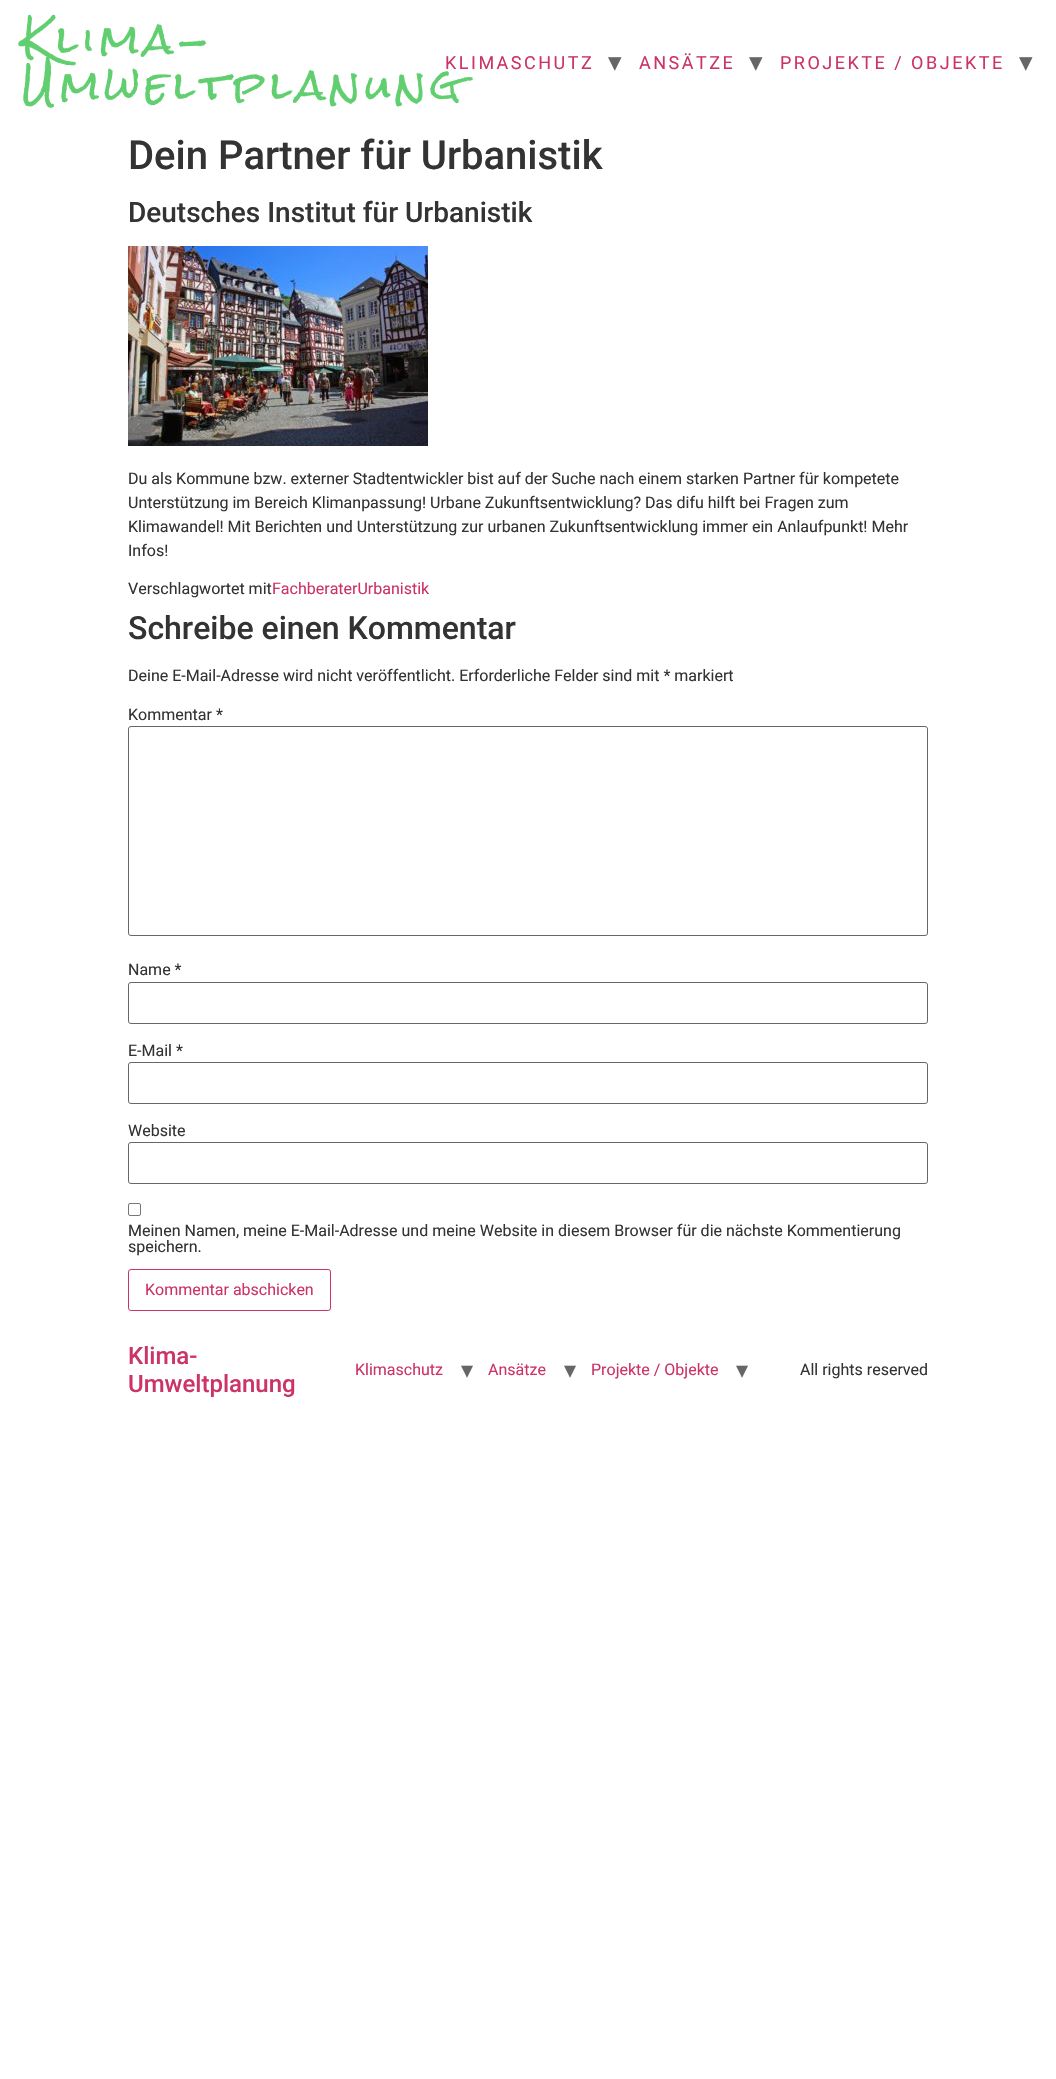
void draw(SkCanvas* canvas) {
    SkPaint paint;
    paint.setAntiAlias(true);
    auto spacedText = [&](const char* s, float x, float y, const SkFont& font, const SkPaint& ink, float letter, float word) {
        std::vector<SkGlyphID> glyphs(font.countText(s, strlen(s), SkTextEncoding::kUTF8));
        std::vector<float> xs(glyphs.size());
        font.textToGlyphs(s, strlen(s), SkTextEncoding::kUTF8, glyphs);
        font.getXPos(glyphs, xs, x);
        float extra = 0;
        for (size_t i = 0; i < glyphs.size(); i++) {
            xs[i] += extra;
            extra += letter + word * (glyphs[i] == font.unicharToGlyph(' '));
        }
        canvas->drawTextBlob(SkTextBlob::MakeFromPosHGlyphs(glyphs, xs, y, font), 0, 0, ink);
    };
    canvas->clear(0xFFFFFFFF);
    SkFont font1(fontMgr->matchFamilyStyle("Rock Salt", SkFontStyle::Normal()), 40);
    font1.setSubpixel(true);
    paint.setColor(0xFF61CE70);
    spacedText("Klima-", 21, 55, font1, paint, 5.25f, 0);
    spacedText("Umweltplanung", 21, 101, font1, paint, 5.25f, 0);
    SkFont font2(fontMgr->matchFamilyStyle("Roboto", SkFontStyle::Normal()), 18);
    font2.setSubpixel(true);
    paint.setColor(0xFFCC3366);
    spacedText("KLIMASCHUTZ", 445, 69, font2, paint, 2.5f, 0);
    SkFont font3(fontMgr->matchFamilyStyle("DejaVu Sans", SkFontStyle::Normal()), 27);
    font3.setSubpixel(true);
    paint.setColor(0xFF666666);
    spacedText("▾", 608, 71, font3, paint, 2.5f, 0);
    paint.setColor(0xFFCC3366);
    spacedText("ANSÄTZE", 639, 69, font2, paint, 2.5f, 0);
    paint.setColor(0xFF666666);
    spacedText("▾", 749, 71, font3, paint, 2.5f, 0);
    paint.setColor(0xFFCC3366);
    spacedText("PROJEKTE / OBJEKTE", 780, 69, font2, paint, 2.5f, 0);
    paint.setColor(0xFF666666);
    spacedText("▾", 1019, 71, font3, paint, 2.5f, 0);
    SkFont font4(fontMgr->matchFamilyStyle("Roboto", SkFontStyle(500, SkFontStyle::kNormal_Width, SkFontStyle::kUpright_Slant)), 40);
    font4.setSubpixel(true);
    paint.setColor(0xFF333333);
    canvas->drawString("Dein Partner für Urbanistik", 128, 169, font4, paint);
    SkFont font5(fontMgr->matchFamilyStyle("Roboto", SkFontStyle(500, SkFontStyle::kNormal_Width, SkFontStyle::kUpright_Slant)), 28);
    font5.setSubpixel(true);
    canvas->drawString("Deutsches Institut für Urbanistik", 128, 222, font5, paint);
    canvas->drawImageRect(SkImages::DeferredFromEncodedData(SkData::MakeFromFileName("img1.png")), SkRect::MakeXYWH(128, 246, 300, 200), SkSamplingOptions());
    SkFont font6(fontMgr->matchFamilyStyle("Roboto", SkFontStyle::Normal()), 16);
    font6.setSubpixel(true);
    canvas->drawString("Du als Kommune bzw. externer Stadtentwickler bist auf der Suche nach einem starken Partner für kompetete", 128, 484, font6, paint);
    canvas->drawString("Unterstützung im Bereich Klimanpassung! Urbane Zukunftsentwicklung? Das difu hilft bei Fragen zum", 128, 508, font6, paint);
    canvas->drawString("Klimawandel! Mit Berichten und Unterstützung zur urbanen Zukunftsentwicklung immer ein Anlaufpunkt! Mehr", 128, 532, font6, paint);
    canvas->drawString("Infos!", 128, 556, font6, paint);
    canvas->drawString("Verschlagwortet mit", 128, 594, font6, paint);
    paint.setColor(0xFFCC3366);
    canvas->drawString("FachberaterUrbanistik", 272, 594, font6, paint);
    SkFont font7(fontMgr->matchFamilyStyle("Roboto", SkFontStyle(500, SkFontStyle::kNormal_Width, SkFontStyle::kUpright_Slant)), 32);
    font7.setSubpixel(true);
    paint.setColor(0xFF333333);
    canvas->drawString("Schreibe einen Kommentar", 128, 639, font7, paint);
    canvas->drawString("Deine E-Mail-Adresse wird nicht veröffentlicht. Erforderliche Felder sind mit * markiert", 128, 681, font6, paint);
    canvas->drawString("Kommentar *", 128, 720, font6, paint);
    paint.setStyle(SkPaint::kStroke_Style);
    paint.setStrokeWidth(1);
    paint.setColor(0xFF666666);
    canvas->drawRoundRect(SkRect::MakeXYWH(128.5f, 726.5f, 799, 209), 2.5f, 2.5f, paint);
    paint.setStyle(SkPaint::kFill_Style);
    paint.setColor(0xFF333333);
    canvas->drawString("Name *", 128, 975, font6, paint);
    paint.setStyle(SkPaint::kStroke_Style);
    paint.setColor(0xFF666666);
    canvas->drawRoundRect(SkRect::MakeXYWH(128.5f, 982.5f, 799, 41), 2.5f, 2.5f, paint);
    paint.setStyle(SkPaint::kFill_Style);
    paint.setColor(0xFF333333);
    canvas->drawString("E-Mail *", 128, 1056, font6, paint);
    paint.setStyle(SkPaint::kStroke_Style);
    paint.setColor(0xFF666666);
    canvas->drawRoundRect(SkRect::MakeXYWH(128.5f, 1062.5f, 799, 41), 2.5f, 2.5f, paint);
    paint.setStyle(SkPaint::kFill_Style);
    paint.setColor(0xFF333333);
    canvas->drawString("Website", 128, 1136, font6, paint);
    paint.setStyle(SkPaint::kStroke_Style);
    paint.setColor(0xFF666666);
    canvas->drawRoundRect(SkRect::MakeXYWH(128.5f, 1142.5f, 799, 41), 2.5f, 2.5f, paint);
    paint.setColor(0xFF767676);
    canvas->drawRoundRect(SkRect::MakeXYWH(128.5f, 1203.5f, 12, 12), 1.5f, 1.5f, paint);
    paint.setStyle(SkPaint::kFill_Style);
    paint.setColor(0xFF333333);
    canvas->drawString("Meinen Namen, meine E-Mail-Adresse und meine Website in diesem Browser für die nächste Kommentierung", 128, 1236, font6, paint);
    canvas->drawString("speichern.", 128, 1252, font6, paint);
    paint.setStyle(SkPaint::kStroke_Style);
    paint.setColor(0xFFCC3366);
    canvas->drawRoundRect(SkRect::MakeXYWH(128.5f, 1269.5f, 202, 41), 2.5f, 2.5f, paint);
    paint.setStyle(SkPaint::kFill_Style);
    canvas->drawString("Kommentar abschicken", 145, 1295, font6, paint);
    SkFont font8(fontMgr->matchFamilyStyle("Roboto", SkFontStyle(500, SkFontStyle::kNormal_Width, SkFontStyle::kUpright_Slant)), 24);
    font8.setSubpixel(true);
    canvas->drawString("Klima-", 128, 1364, font8, paint);
    canvas->drawString("Umweltplanung", 128, 1392, font8, paint);
    canvas->drawString("Klimaschutz", 355, 1375, font6, paint);
    SkFont font9(fontMgr->matchFamilyStyle("DejaVu Sans", SkFontStyle::Normal()), 24);
    font9.setSubpixel(true);
    paint.setColor(0xFF666666);
    canvas->drawString("▾", 461, 1378, font9, paint);
    paint.setColor(0xFFCC3366);
    canvas->drawString("Ansätze", 488, 1375, font6, paint);
    paint.setColor(0xFF666666);
    canvas->drawString("▾", 564, 1378, font9, paint);
    paint.setColor(0xFFCC3366);
    canvas->drawString("Projekte / Objekte", 591, 1375, font6, paint);
    paint.setColor(0xFF666666);
    canvas->drawString("▾", 736, 1378, font9, paint);
    paint.setColor(0xFF333333);
    canvas->drawString("All rights reserved", 800, 1375, font6, paint);
}
